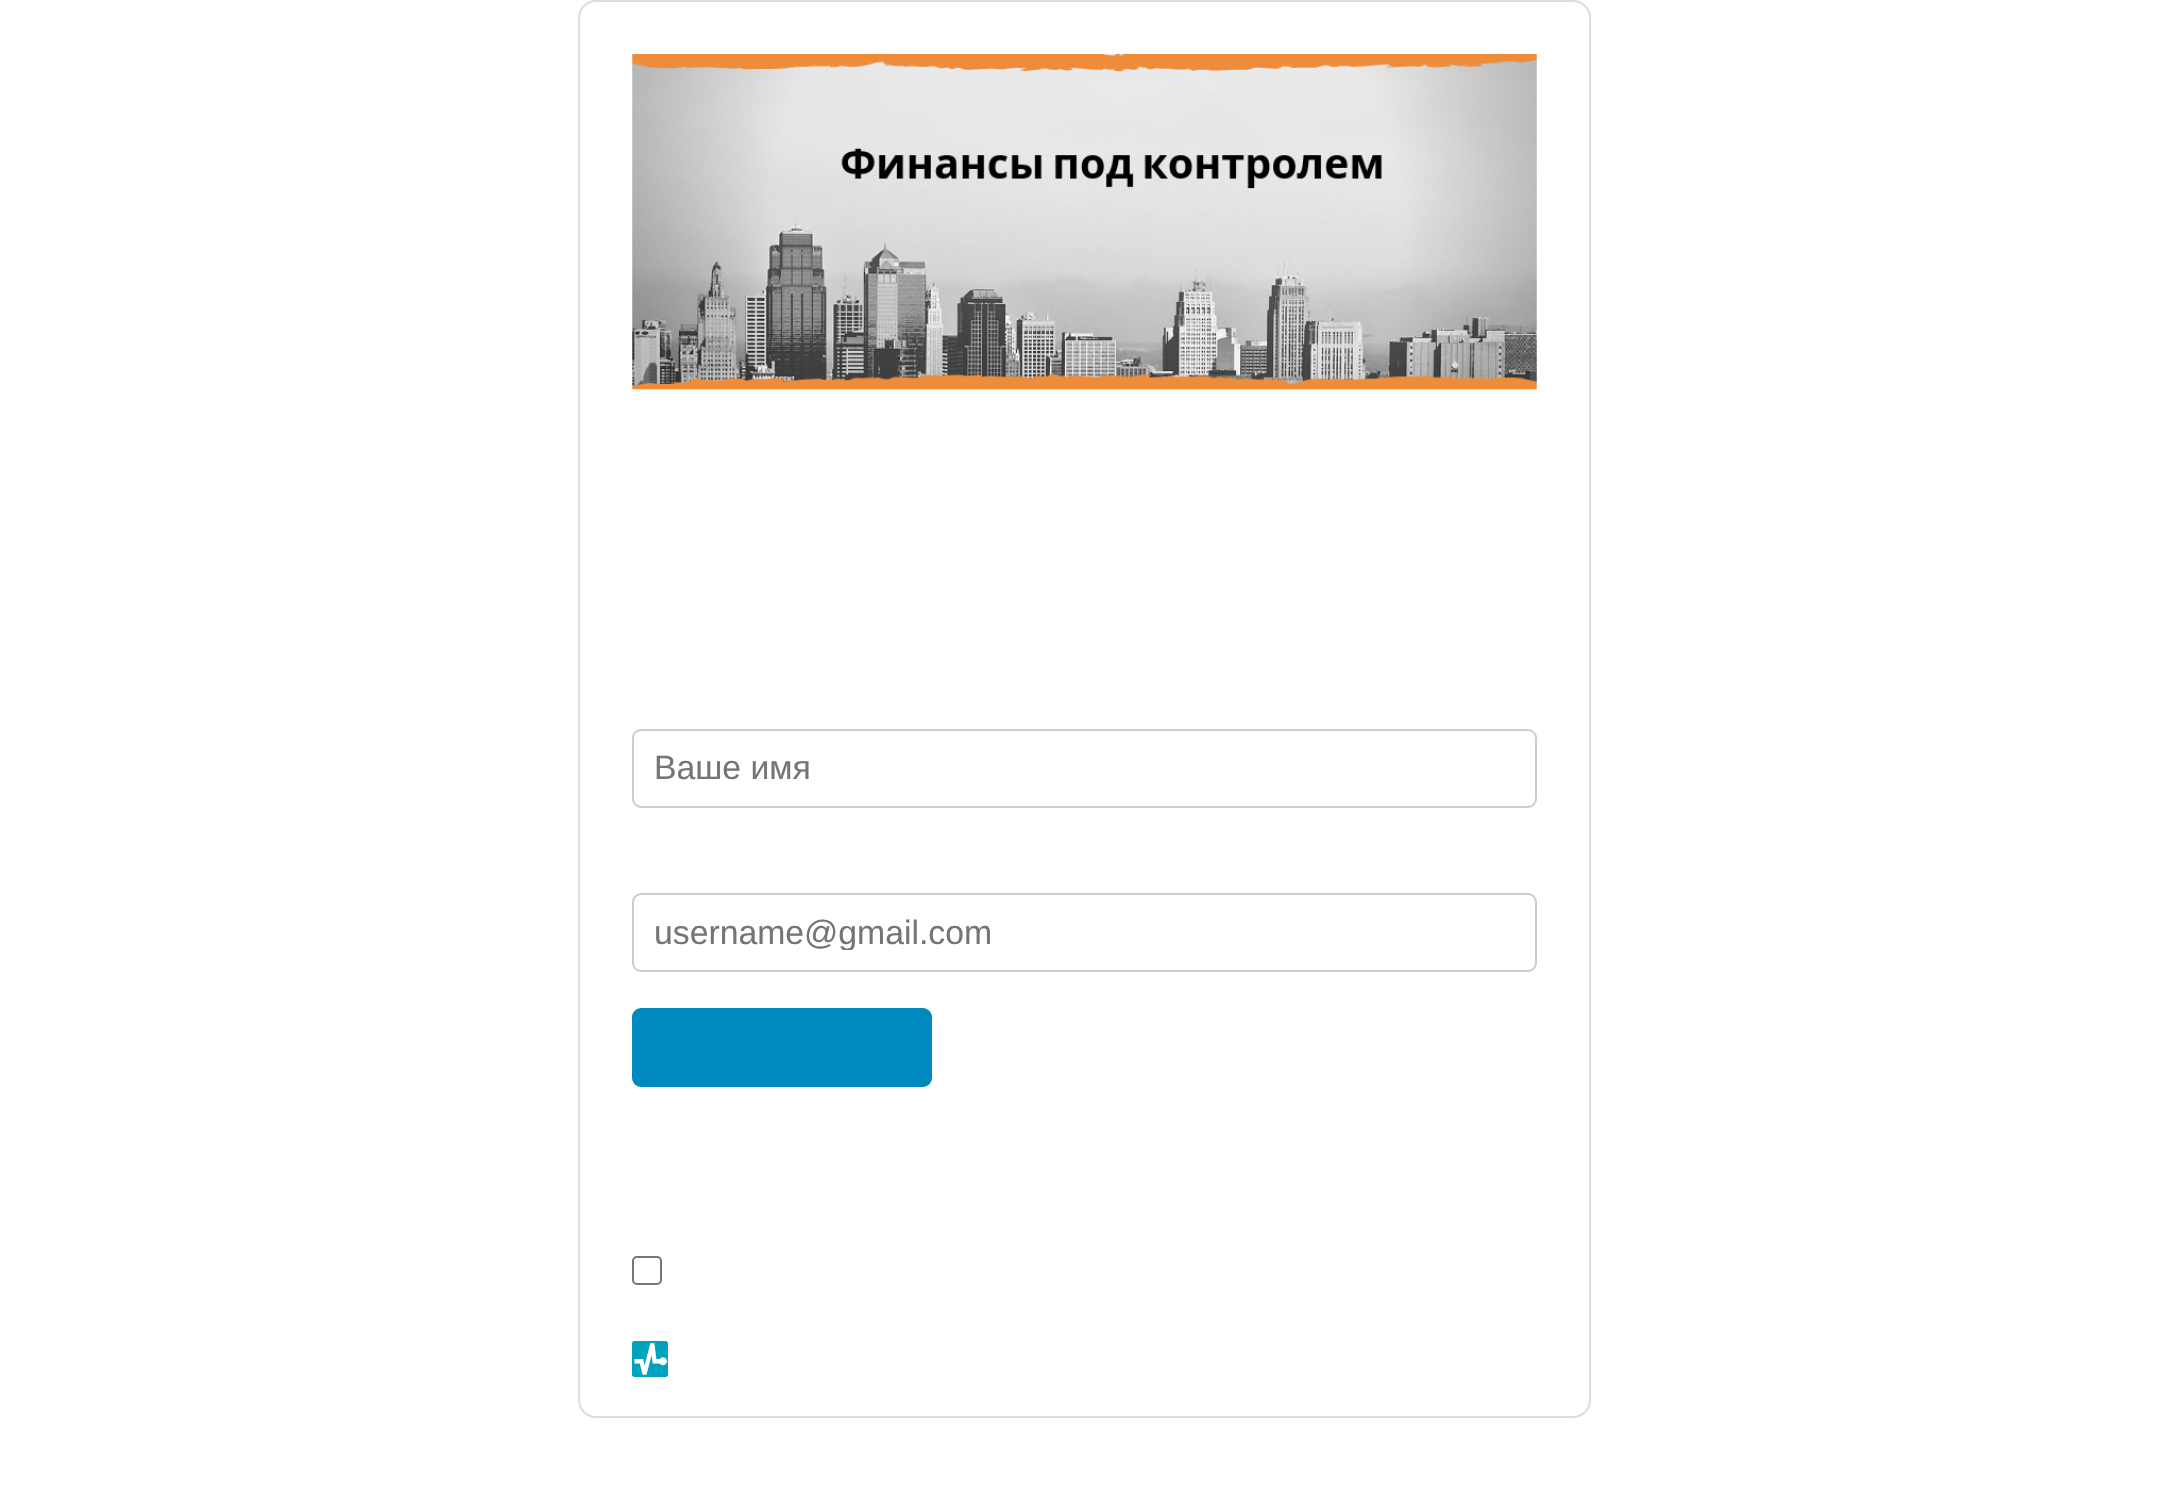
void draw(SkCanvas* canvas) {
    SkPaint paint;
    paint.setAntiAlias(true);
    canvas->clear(0xFFFFFFFF);
    paint.setStyle(SkPaint::kStroke_Style);
    paint.setStrokeWidth(2);
    paint.setColor(0xFFDDDDDD);
    canvas->drawRoundRect(SkRect::MakeXYWH(579, 1, 1011, 1416), 17, 17, paint);
    canvas->drawImageRect(SkImages::DeferredFromEncodedData(SkData::MakeFromFileName("img1.png")), SkRect::MakeXYWH(632, 54, 905, 336), SkSamplingOptions());
    paint.setColor(0xFFCCCCCC);
    canvas->drawRoundRect(SkRect::MakeXYWH(633, 730, 903, 77), 8, 8, paint);
    SkFont font1(fontMgr->matchFamilyStyle("Liberation Sans", SkFontStyle::Normal()), 33.75f);
    font1.setSubpixel(true);
    paint.setStyle(SkPaint::kFill_Style);
    paint.setColor(0xFF757575);
    canvas->drawString("Ваше имя", 654, 779, font1, paint);
    paint.setStyle(SkPaint::kStroke_Style);
    paint.setColor(0xFFCCCCCC);
    canvas->drawRoundRect(SkRect::MakeXYWH(633, 894, 903, 77), 8, 8, paint);
    canvas->save();
    canvas->clipRect(SkRect::MakeXYWH(655, 911, 859, 39));
    paint.setStyle(SkPaint::kFill_Style);
    paint.setColor(0xFF757575);
    canvas->drawString("username@gmail.com", 654, 944, font1, paint);
    canvas->restore();
    paint.setColor(0xFF0089BF);
    canvas->drawRoundRect(SkRect::MakeXYWH(632, 1008, 300, 79), 9, 9, paint);
    paint.setStyle(SkPaint::kStroke_Style);
    paint.setColor(0xFF767676);
    canvas->drawRoundRect(SkRect::MakeXYWH(633, 1257, 28, 27), 4, 4, paint);
    canvas->drawImageRect(SkImages::DeferredFromEncodedData(SkData::MakeFromFileName("img2.png")), SkRect::MakeXYWH(632, 1341, 36, 36), SkSamplingOptions());
}
